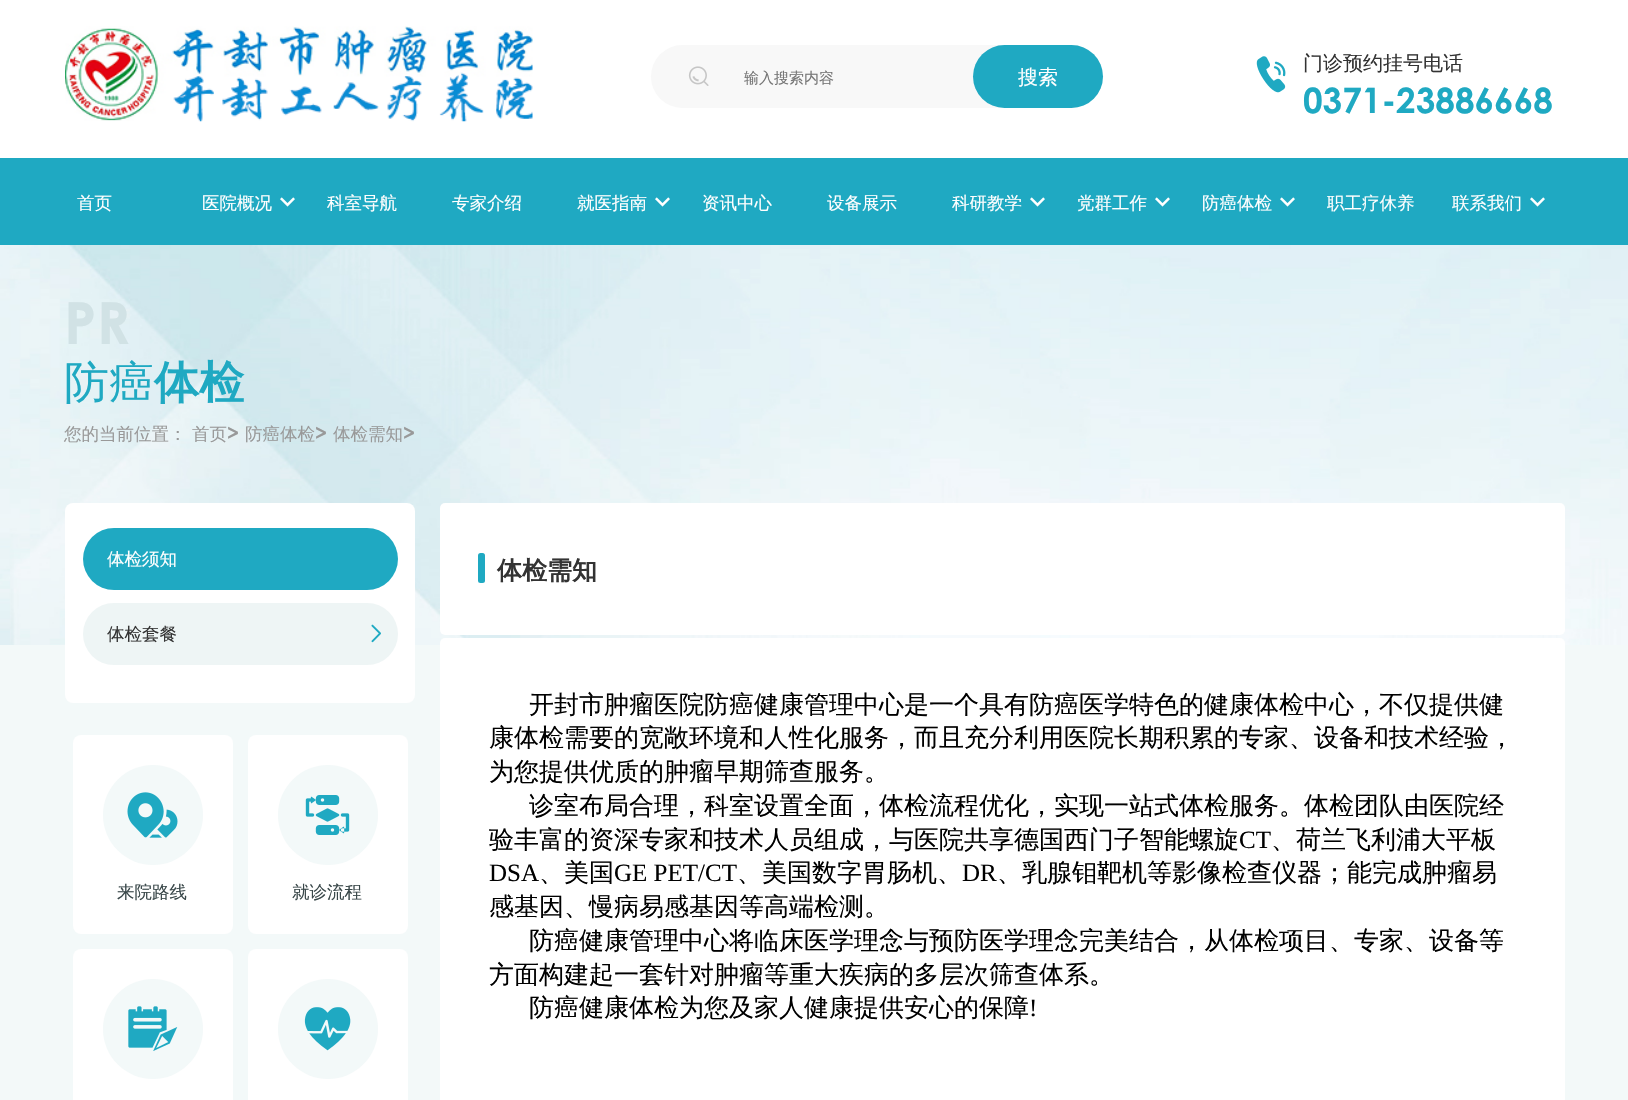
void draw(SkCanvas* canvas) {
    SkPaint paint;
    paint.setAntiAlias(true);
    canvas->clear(0xFFFFFFFF);
    canvas->drawImageRect(SkImages::DeferredFromEncodedData(SkData::MakeFromFileName("img1.png")), SkRect::MakeXYWH(65, 26, 468, 96), SkSamplingOptions());
    paint.setColor(0xFFF8F8F8);
    canvas->drawRoundRect(SkRect::MakeXYWH(651, 45, 452, 63), 31.5f, 31.5f, paint);
    canvas->drawImageRect(SkImages::DeferredFromEncodedData(SkData::MakeFromFileName("img2.png")), SkRect::MakeXYWH(688, 66, 21, 20), SkSamplingOptions());
    SkFont font1(fontMgr->matchFamilyStyle("WenQuanYi Zen Hei", SkFontStyle(500, SkFontStyle::kNormal_Width, SkFontStyle::kUpright_Slant)), 15);
    font1.setSubpixel(true);
    paint.setColor(0xFF757575);
    canvas->drawString("输入搜索内容", 744, 83, font1, paint);
    paint.setColor(0xFF1FA9C2);
    canvas->drawRoundRect(SkRect::MakeXYWH(973, 45, 130, 63), 31.5f, 31.5f, paint);
    SkFont font2(fontMgr->matchFamilyStyle("WenQuanYi Zen Hei", SkFontStyle(500, SkFontStyle::kNormal_Width, SkFontStyle::kUpright_Slant)), 20);
    font2.setSubpixel(true);
    paint.setColor(0xFFFFFFFF);
    canvas->drawString("搜索", 1018, 84, font2, paint);
    canvas->drawImageRect(SkImages::DeferredFromEncodedData(SkData::MakeFromFileName("img3.png")), SkRect::MakeXYWH(1256, 56, 30, 37), SkSamplingOptions());
    paint.setColor(0xFF333333);
    canvas->drawString("门诊预约挂号电话", 1303, 70, font2, paint);
    SkFont font3(fontMgr->matchFamilyStyle("Century Gothic", SkFontStyle::Bold()), 35);
    font3.setSubpixel(true);
    paint.setColor(0xFF1FA9C2);
    canvas->drawString("0371-23886668", 1303, 113, font3, paint);
    canvas->drawRect(SkRect::MakeXYWH(0, 158, 1628, 87), paint);
    SkFont font4(fontMgr->matchFamilyStyle("WenQuanYi Zen Hei", SkFontStyle(500, SkFontStyle::kNormal_Width, SkFontStyle::kUpright_Slant)), 17.5f);
    font4.setSubpixel(true);
    paint.setColor(0xFFFFFFFF);
    canvas->drawString("首页", 77, 209, font4, paint);
    canvas->drawString("医院概况", 202, 209, font4, paint);
    canvas->drawImageRect(SkImages::DeferredFromEncodedData(SkData::MakeFromFileName("img4.png")), SkRect::MakeXYWH(280, 197, 15, 10), SkSamplingOptions());
    canvas->drawString("科室导航", 327, 209, font4, paint);
    canvas->drawString("专家介绍", 452, 209, font4, paint);
    canvas->drawString("就医指南", 577, 209, font4, paint);
    canvas->drawImageRect(SkImages::DeferredFromEncodedData(SkData::MakeFromFileName("img4.png")), SkRect::MakeXYWH(655, 197, 15, 10), SkSamplingOptions());
    canvas->drawString("资讯中心", 702, 209, font4, paint);
    canvas->drawString("设备展示", 827, 209, font4, paint);
    canvas->drawString("科研教学", 952, 209, font4, paint);
    canvas->drawImageRect(SkImages::DeferredFromEncodedData(SkData::MakeFromFileName("img4.png")), SkRect::MakeXYWH(1030, 197, 15, 10), SkSamplingOptions());
    canvas->drawString("党群工作", 1077, 209, font4, paint);
    canvas->drawImageRect(SkImages::DeferredFromEncodedData(SkData::MakeFromFileName("img4.png")), SkRect::MakeXYWH(1155, 197, 15, 10), SkSamplingOptions());
    canvas->drawString("防癌体检", 1202, 209, font4, paint);
    canvas->drawImageRect(SkImages::DeferredFromEncodedData(SkData::MakeFromFileName("img4.png")), SkRect::MakeXYWH(1280, 197, 15, 10), SkSamplingOptions());
    canvas->drawString("职工疗休养", 1327, 209, font4, paint);
    canvas->drawString("联系我们", 1452, 209, font4, paint);
    canvas->drawImageRect(SkImages::DeferredFromEncodedData(SkData::MakeFromFileName("img4.png")), SkRect::MakeXYWH(1530, 197, 15, 10), SkSamplingOptions());
    paint.setColor(0xFFF3F9F9);
    canvas->drawRect(SkRect::MakeXYWH(0, 645, 1628, 455), paint);
    canvas->drawImageRect(SkImages::DeferredFromEncodedData(SkData::MakeFromFileName("img5.png")), SkRect::MakeXYWH(0, 245, 1628, 400), SkSamplingOptions());
    SkFont font5(fontMgr->matchFamilyStyle("Century Gothic", SkFontStyle::Bold()), 58);
    font5.setSubpixel(true);
    paint.setColor(0xFFD1E2E5);
    canvas->drawString("PR", 64, 344, font5, paint);
    SkFont font6(fontMgr->matchFamilyStyle("WenQuanYi Zen Hei", SkFontStyle(500, SkFontStyle::kNormal_Width, SkFontStyle::kUpright_Slant)), 45);
    font6.setSubpixel(true);
    paint.setColor(0xFF1FA9C2);
    canvas->drawString("防癌", 64, 398, font6, paint);
    SkFont font7(fontMgr->matchFamilyStyle("WenQuanYi Zen Hei", SkFontStyle::Bold()), 45);
    font7.setSubpixel(true);
    canvas->drawString("体检", 154, 398, font7, paint);
    paint.setColor(0xFF999999);
    canvas->drawString("您的当前位置：", 64, 440, font4, paint);
    canvas->drawString("首页", 192, 440, font4, paint);
    SkFont font8(fontMgr->matchFamilyStyle("Century Gothic", SkFontStyle::Bold()), 20);
    font8.setSubpixel(true);
    canvas->drawString(">", 227, 440, font8, paint);
    canvas->drawString("防癌体检", 245, 440, font4, paint);
    canvas->drawString(">", 315, 440, font8, paint);
    canvas->drawString("体检需知", 333, 440, font4, paint);
    canvas->drawString(">", 403, 440, font8, paint);
    paint.setColor(0xFFFFFFFF);
    canvas->drawRoundRect(SkRect::MakeXYWH(65, 503, 350, 200), 8, 8, paint);
    paint.setColor(0xFF1FA9C2);
    canvas->drawRoundRect(SkRect::MakeXYWH(83, 528, 315, 62), 31, 31, paint);
    paint.setColor(0xFFFFFFFF);
    canvas->drawString("体检须知", 107, 565, font4, paint);
    paint.setColor(0xFFEEF5F5);
    canvas->drawRoundRect(SkRect::MakeXYWH(83, 603, 315, 62), 31, 31, paint);
    paint.setColor(0xFF333333);
    canvas->drawString("体检套餐", 107, 640, font4, paint);
    canvas->drawImageRect(SkImages::DeferredFromEncodedData(SkData::MakeFromFileName("img6.png")), SkRect::MakeXYWH(371, 624, 10, 19), SkSamplingOptions());
    paint.setColor(0xFFFFFFFF);
    canvas->drawRoundRect(SkRect::MakeXYWH(73, 735, 160, 199), 8, 8, paint);
    paint.setColor(0xFFF3F9F9);
    canvas->drawCircle(153, 815, 50, paint);
    canvas->drawImageRect(SkImages::DeferredFromEncodedData(SkData::MakeFromFileName("img7.png")), SkRect::MakeXYWH(127, 792, 51, 46), SkSamplingOptions());
    paint.setColor(0xFF394749);
    canvas->drawString("来院路线", 117, 898, font4, paint);
    paint.setColor(0xFFFFFFFF);
    canvas->drawRoundRect(SkRect::MakeXYWH(248, 735, 160, 199), 8, 8, paint);
    paint.setColor(0xFFF3F9F9);
    canvas->drawCircle(328, 815, 50, paint);
    canvas->drawImageRect(SkImages::DeferredFromEncodedData(SkData::MakeFromFileName("img8.png")), SkRect::MakeXYWH(305, 795, 45, 40), SkSamplingOptions());
    paint.setColor(0xFF394749);
    canvas->drawString("就诊流程", 292, 898, font4, paint);
    paint.setColor(0xFFFFFFFF);
    canvas->drawRoundRect(SkRect::MakeXYWH(73, 949, 160, 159), 8, 8, paint);
    paint.setColor(0xFFF3F9F9);
    canvas->drawCircle(153, 1029, 50, paint);
    canvas->drawImageRect(SkImages::DeferredFromEncodedData(SkData::MakeFromFileName("img9.png")), SkRect::MakeXYWH(128, 1006, 50, 45), SkSamplingOptions());
    paint.setColor(0xFFFFFFFF);
    canvas->drawRoundRect(SkRect::MakeXYWH(248, 949, 160, 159), 8, 8, paint);
    paint.setColor(0xFFF3F9F9);
    canvas->drawCircle(328, 1029, 50, paint);
    canvas->drawImageRect(SkImages::DeferredFromEncodedData(SkData::MakeFromFileName("img10.png")), SkRect::MakeXYWH(304, 1007, 47, 44), SkSamplingOptions());
    paint.setColor(0xFFFFFFFF);
    canvas->drawRoundRect(SkRect::MakeXYWH(440, 503, 1125, 132), 5, 5, paint);
    paint.setColor(0xFF1FA9C2);
    canvas->drawRoundRect(SkRect::MakeXYWH(478, 553, 7, 30), 2.5f, 2.5f, paint);
    SkFont font9(fontMgr->matchFamilyStyle("WenQuanYi Zen Hei", SkFontStyle::Bold()), 25);
    font9.setSubpixel(true);
    paint.setColor(0xFF333333);
    canvas->drawString("体检需知", 497, 579, font9, paint);
    paint.setColor(0xFFFFFFFF);
    canvas->drawRoundRect(SkRect::MakeXYWH(440, 638, 1125, 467), 5, 5, paint);
    SkFont font10(fontMgr->matchFamilyStyle("WenQuanYi Zen Hei", SkFontStyle(500, SkFontStyle::kNormal_Width, SkFontStyle::kUpright_Slant)), 25);
    font10.setSubpixel(true);
    paint.setColor(0xFF000000);
    canvas->drawString("开封市肿瘤医院防癌健康管理中心是一个具有防癌医学特色的健康体检中心，不仅提供健", 529, 713, font10, paint);
    canvas->drawString("康体检需要的宽敞环境和人性化服务，而且充分利用医院长期积累的专家、设备和技术经验，", 489, 746, font10, paint);
    canvas->drawString("为您提供优质的肿瘤早期筛查服务。", 489, 780, font10, paint);
    canvas->drawString("诊室布局合理，科室设置全面，体检流程优化，实现一站式体检服务。体检团队由医院经", 529, 814, font10, paint);
    canvas->drawString("验丰富的资深专家和技术人员组成，与医院共享德国西门子智能螺旋", 489, 848, font10, paint);
    SkFont font11(fontMgr->matchFamilyStyle("Liberation Serif", SkFontStyle::Normal()), 25);
    font11.setSubpixel(true);
    canvas->drawString("CT", 1239, 848, font11, paint);
    canvas->drawString("、荷兰飞利浦大平板", 1271, 848, font10, paint);
    canvas->drawString("DSA", 489, 881, font11, paint);
    canvas->drawString("、美国", 539, 881, font10, paint);
    canvas->drawString("GE PET/CT", 614, 881, font11, paint);
    canvas->drawString("、美国数字胃肠机、", 737, 881, font10, paint);
    canvas->drawString("DR", 962, 881, font11, paint);
    canvas->drawString("、乳腺钼靶机等影像检查仪器；能完成肿瘤易", 997, 881, font10, paint);
    canvas->drawString("感基因、慢病易感基因等高端检测。", 489, 915, font10, paint);
    canvas->drawString("防癌健康管理中心将临床医学理念与预防医学理念完美结合，从体检项目、专家、设备等", 529, 949, font10, paint);
    canvas->drawString("方面构建起一套针对肿瘤等重大疾病的多层次筛查体系。", 489, 983, font10, paint);
    canvas->drawString("防癌健康体检为您及家人健康提供安心的保障", 529, 1016, font10, paint);
    canvas->drawString("!", 1029, 1016, font11, paint);
}
